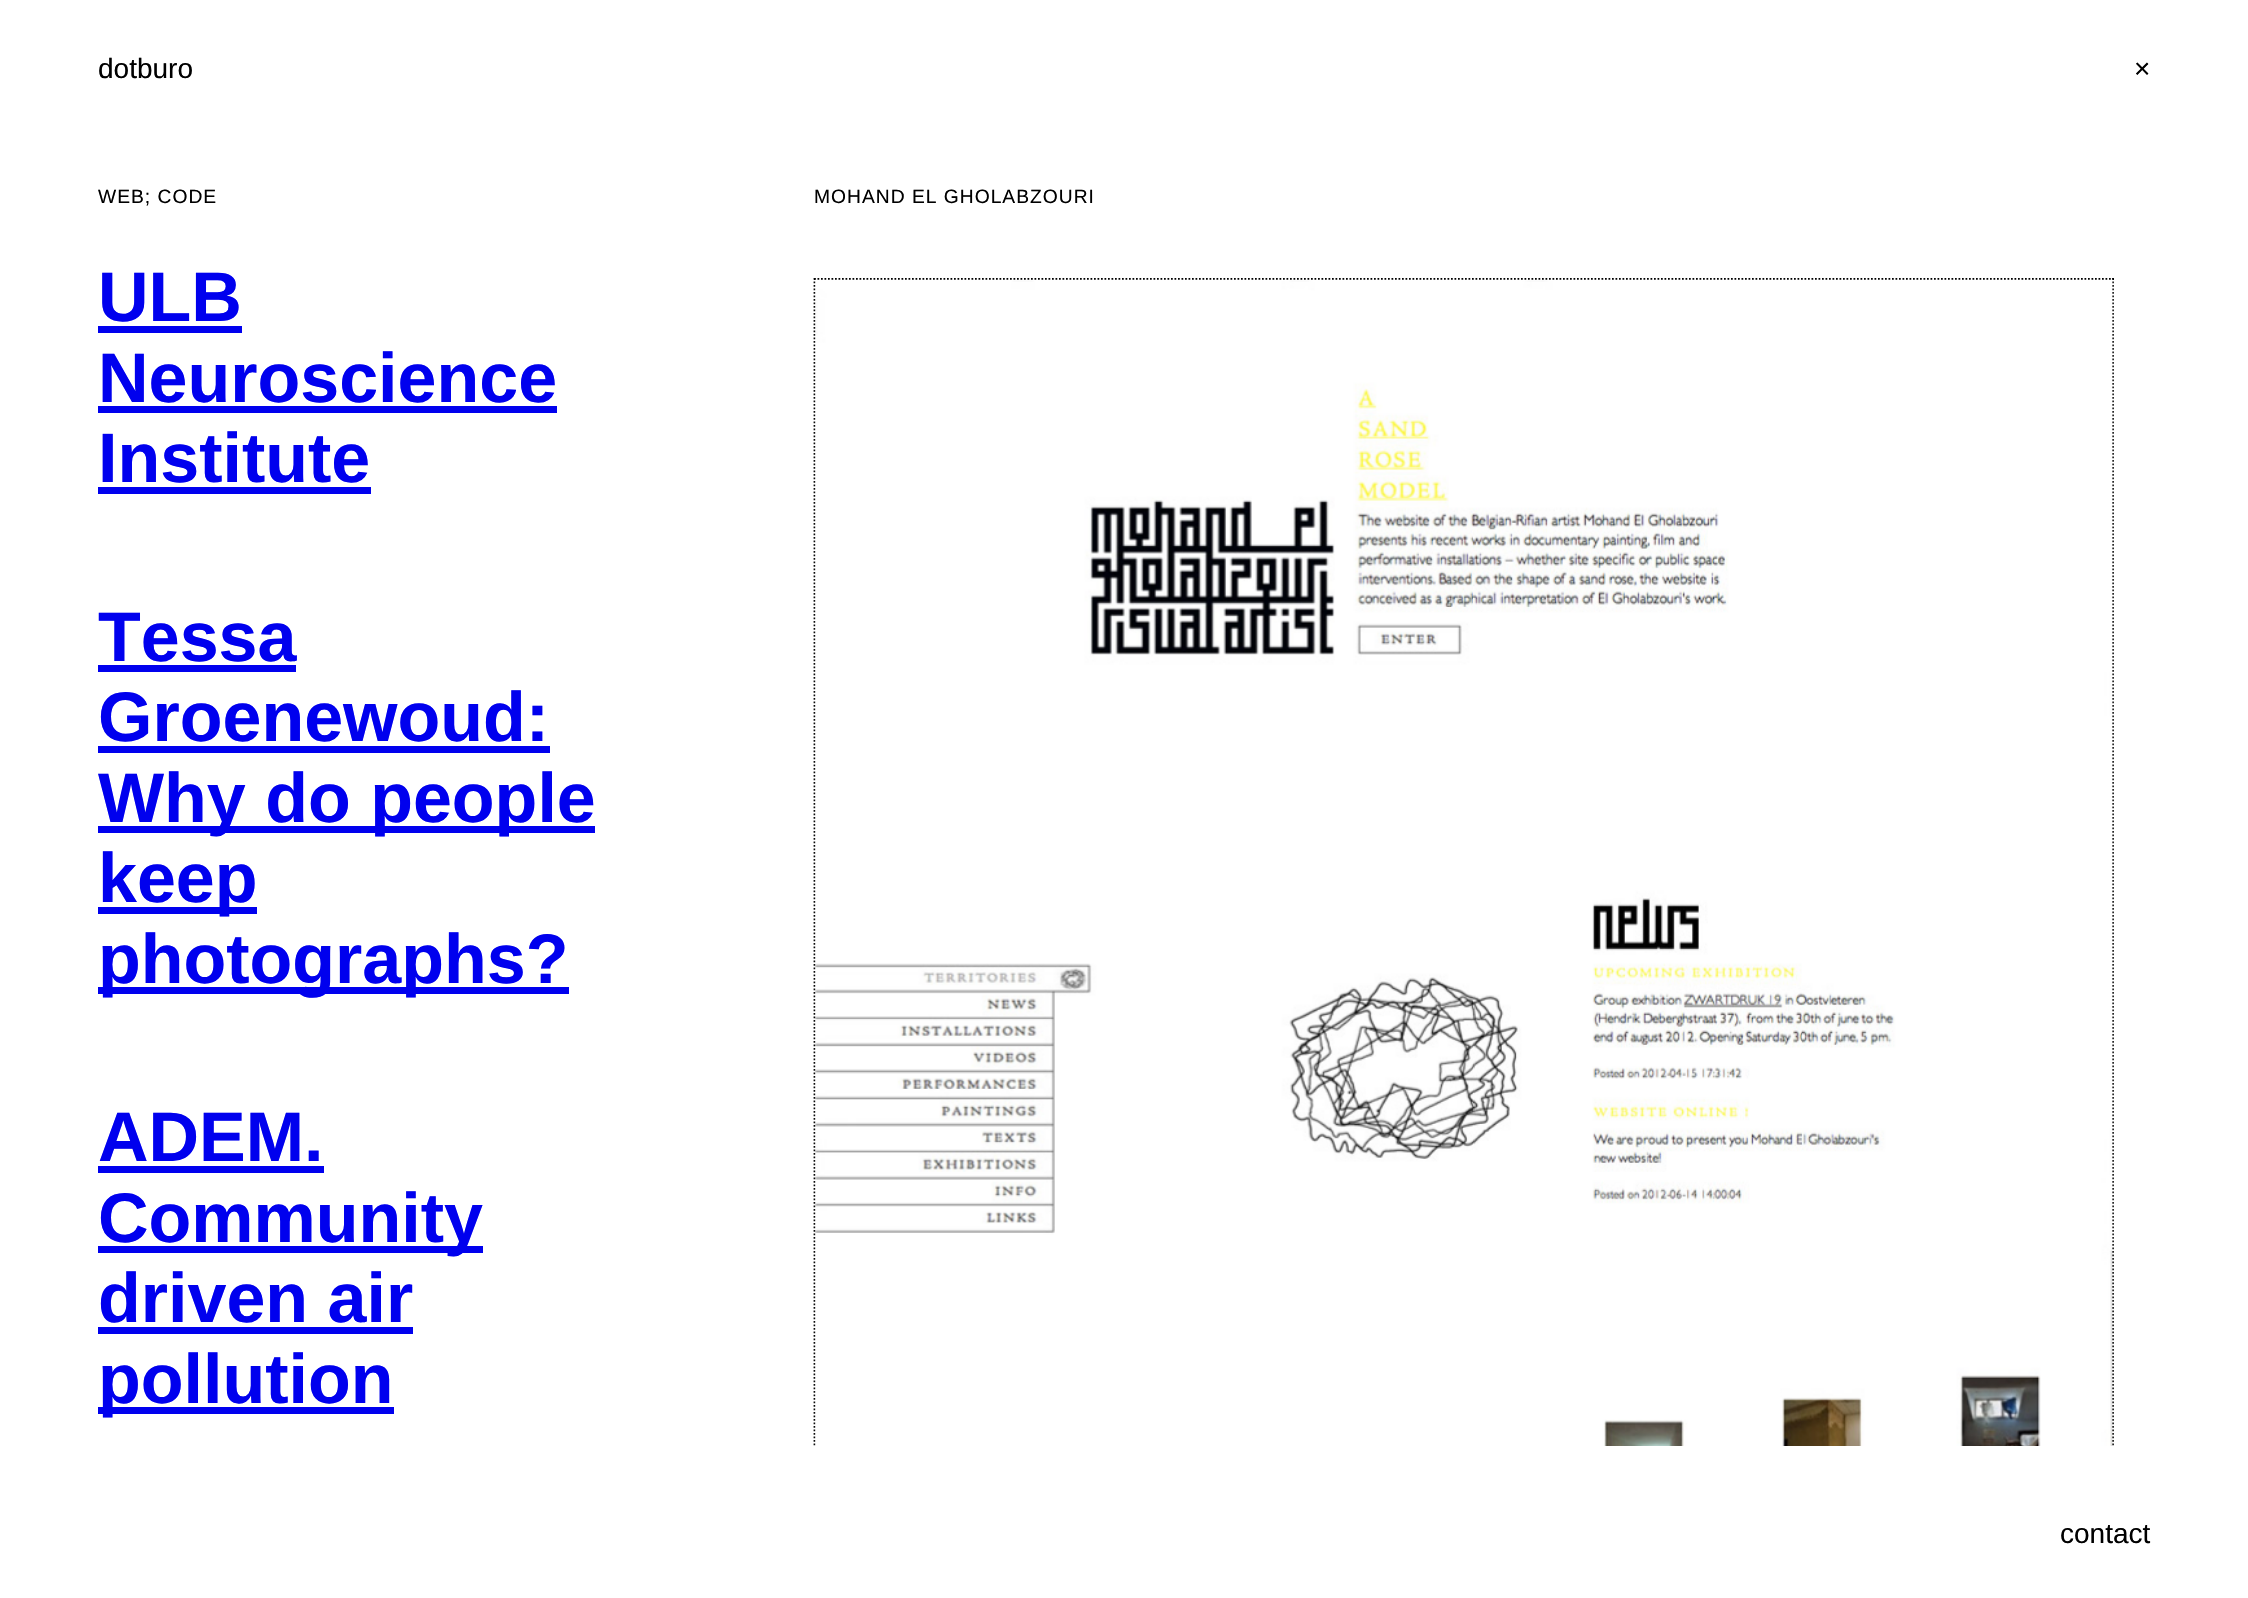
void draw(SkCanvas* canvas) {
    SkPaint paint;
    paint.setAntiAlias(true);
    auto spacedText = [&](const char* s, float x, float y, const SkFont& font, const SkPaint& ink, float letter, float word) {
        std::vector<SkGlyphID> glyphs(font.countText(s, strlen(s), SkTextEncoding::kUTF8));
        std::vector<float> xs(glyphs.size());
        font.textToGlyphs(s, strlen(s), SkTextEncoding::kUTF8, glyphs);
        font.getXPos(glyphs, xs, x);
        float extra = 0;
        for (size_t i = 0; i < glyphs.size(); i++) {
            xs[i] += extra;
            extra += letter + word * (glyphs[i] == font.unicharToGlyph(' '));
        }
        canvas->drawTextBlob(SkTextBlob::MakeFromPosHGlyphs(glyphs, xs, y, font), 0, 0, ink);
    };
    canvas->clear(0xFFFFFFFF);
    SkFont font1(fontMgr->matchFamilyStyle("Liberation Sans", SkFontStyle::Normal()), 28);
    font1.setSubpixel(true);
    paint.setColor(0xFF000000);
    canvas->drawString("dotburo", 98, 78, font1, paint);
    canvas->drawString("×", 2134, 78, font1, paint);
    SkFont font2(fontMgr->matchFamilyStyle("Liberation Sans", SkFontStyle::Normal()), 19.25f);
    font2.setSubpixel(true);
    spacedText("WEB; CODE", 98, 203, font2, paint, 1, 0);
    SkFont font3(fontMgr->matchFamilyStyle("Liberation Sans", SkFontStyle::Bold()), 70);
    font3.setSubpixel(true);
    paint.setColor(0xFF0000EE);
    canvas->drawString("ULB", 98, 321, font3, paint);
    canvas->drawRect(SkRect::MakeXYWH(98, 326, 144, 7), paint);
    canvas->drawString("Neuroscience", 98, 402, font3, paint);
    canvas->drawRect(SkRect::MakeXYWH(98, 406, 459, 7), paint);
    canvas->drawString("Institute", 98, 482, font3, paint);
    canvas->drawRect(SkRect::MakeXYWH(98, 487, 273, 7), paint);
    canvas->drawString("Tessa", 98, 661, font3, paint);
    canvas->drawRect(SkRect::MakeXYWH(98, 665, 198, 7), paint);
    canvas->drawString("Groenewoud:", 98, 741, font3, paint);
    canvas->drawRect(SkRect::MakeXYWH(98, 746, 452, 7), paint);
    canvas->drawRect(SkRect::MakeXYWH(98, 826, 497, 7), paint);
    canvas->drawString("Why do people", 98, 822, font3, paint);
    canvas->drawRect(SkRect::MakeXYWH(98, 907, 159, 7), paint);
    canvas->drawString("keep", 98, 902, font3, paint);
    canvas->drawRect(SkRect::MakeXYWH(98, 987, 471, 7), paint);
    canvas->drawString("photographs?", 98, 983, font3, paint);
    canvas->drawString("ADEM.", 98, 1161, font3, paint);
    canvas->drawRect(SkRect::MakeXYWH(98, 1166, 226, 7), paint);
    canvas->drawRect(SkRect::MakeXYWH(98, 1246, 385, 7), paint);
    canvas->drawString("Community", 98, 1242, font3, paint);
    canvas->drawString("driven air", 98, 1322, font3, paint);
    canvas->drawRect(SkRect::MakeXYWH(98, 1327, 315, 7), paint);
    canvas->drawRect(SkRect::MakeXYWH(98, 1407, 296, 7), paint);
    canvas->drawString("pollution", 98, 1403, font3, paint);
    paint.setColor(0xFF000000);
    spacedText("MOHAND EL GHOLABZOURI", 814, 203, font2, paint, 1, 0);
    paint.setStyle(SkPaint::kStroke_Style);
    paint.setStrokeWidth(1.8f);
    paint.setPathEffect(SkDashPathEffect::Make({{1.75f, 1.75f}}, 0));
    canvas->drawPath(SkPathBuilder().moveTo(814, 279).lineTo(2114, 279).detach(), paint);
    paint.setPathEffect(nullptr);
    canvas->save();
    canvas->clipRect(SkRect::MakeXYWH(756, 182, 1395, 1264));
    paint.setPathEffect(SkDashPathEffect::Make({{1.75f, 1.75f}}, 0));
    canvas->drawPath(SkPathBuilder().moveTo(2113, 278).lineTo(2113, 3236).detach(), paint);
    paint.setPathEffect(nullptr);
    paint.setPathEffect(SkDashPathEffect::Make({{1.75f, 1.75f}}, 0));
    canvas->drawPath(SkPathBuilder().moveTo(814.5f, 278).lineTo(814.5f, 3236).detach(), paint);
    paint.setPathEffect(nullptr);
    canvas->restore();
    canvas->drawImageRect(SkImages::DeferredFromEncodedData(SkData::MakeFromFileName("img1.png")), SkRect::MakeXYWH(814, 279, 1300, 1167), SkSamplingOptions());
    paint.setStyle(SkPaint::kFill_Style);
    canvas->drawString("contact", 2060, 1543, font1, paint);
}
